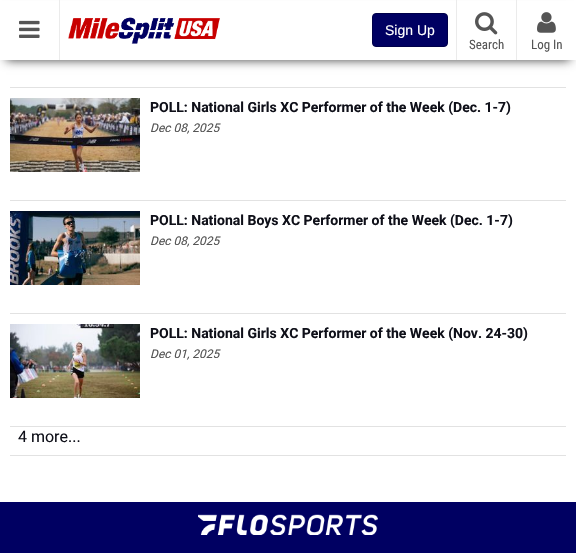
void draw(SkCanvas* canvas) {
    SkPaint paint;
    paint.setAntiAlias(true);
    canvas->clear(0xFFFFFFFF);
    paint.setColor(0xBF000000);
    paint.setMaskFilter(SkMaskFilter::MakeBlur(kNormal_SkBlurStyle, 5));
    canvas->drawRect(SkRect::MakeXYWH(6, 12, 564, 48), paint);
    paint.setMaskFilter(nullptr);
    paint.setColor(0xFFFFFFFF);
    canvas->drawRect(SkRect::MakeXYWH(0, 1, 576, 59), paint);
    paint.setColor(0xFFEBEBEB);
    canvas->drawRect(SkRect::MakeXYWH(59, 0, 1, 60), paint);
    canvas->drawImageRect(SkImages::DeferredFromEncodedData(SkData::MakeFromFileName("img1.png")), SkRect::MakeXYWH(19, 20, 21, 18), SkSamplingOptions());
    canvas->drawImageRect(SkImages::DeferredFromEncodedData(SkData::MakeFromFileName("img2.png")), SkRect::MakeXYWH(68, 17, 152, 27), SkSamplingOptions());
    paint.setColor(0xFF000062);
    canvas->drawRoundRect(SkRect::MakeXYWH(372.5f, 13.5f, 75, 33), 3.5f, 3.5f, paint);
    paint.setStyle(SkPaint::kStroke_Style);
    paint.setStrokeWidth(1);
    paint.setColor(0xFF000049);
    canvas->drawRoundRect(SkRect::MakeXYWH(372.5f, 13.5f, 75, 33), 3.5f, 3.5f, paint);
    SkFont font1(fontMgr->matchFamilyStyle("Liberation Sans", SkFontStyle::Normal()), 14);
    font1.setSubpixel(true);
    paint.setStyle(SkPaint::kFill_Style);
    paint.setColor(0xFFFFFFFF);
    canvas->drawString("Sign Up", 385, 35, font1, paint);
    paint.setColor(0xFFEBEBEB);
    canvas->drawRect(SkRect::MakeXYWH(456, 0, 1, 60), paint);
    canvas->drawImageRect(SkImages::DeferredFromEncodedData(SkData::MakeFromFileName("img3.png")), SkRect::MakeXYWH(475, 12, 23, 23), SkSamplingOptions());
    SkFont font2(fontMgr->matchFamilyStyle("Roboto Condensed", SkFontStyle::Normal()), 13);
    font2.setSubpixel(true);
    paint.setColor(0xFF555555);
    canvas->drawString("Search", 469, 49, font2, paint);
    paint.setColor(0xFFEBEBEB);
    canvas->drawRect(SkRect::MakeXYWH(516, 0, 1, 60), paint);
    canvas->drawImageRect(SkImages::DeferredFromEncodedData(SkData::MakeFromFileName("img4.png")), SkRect::MakeXYWH(537, 12, 19, 21), SkSamplingOptions());
    paint.setColor(0xFF555555);
    canvas->drawString("Log In", 531, 49, font2, paint);
    paint.setColor(0xFFE2E2E2);
    canvas->drawRect(SkRect::MakeXYWH(10, 87, 556, 1), paint);
    canvas->drawRect(SkRect::MakeXYWH(10, 200, 556, 1), paint);
    canvas->drawImageRect(SkImages::DeferredFromEncodedData(SkData::MakeFromFileName("img5.png")), SkRect::MakeXYWH(10, 98, 130, 74), SkSamplingOptions());
    SkFont font3(fontMgr->matchFamilyStyle("Roboto", SkFontStyle::Bold()), 14);
    font3.setSubpixel(true);
    paint.setColor(0xFF0F1019);
    canvas->drawString("POLL: National Girls XC Performer of the Week (Dec. 1-7)", 150, 112, font3, paint);
    SkFont font4(fontMgr->matchFamilyStyle("Roboto", SkFontStyle::Italic()), 12);
    font4.setSubpixel(true);
    paint.setColor(0xFF555555);
    canvas->drawString("Dec 08, 2025", 150, 132, font4, paint);
    paint.setColor(0xFFE2E2E2);
    canvas->drawRect(SkRect::MakeXYWH(10, 313, 556, 1), paint);
    canvas->drawImageRect(SkImages::DeferredFromEncodedData(SkData::MakeFromFileName("img6.png")), SkRect::MakeXYWH(10, 211, 130, 74), SkSamplingOptions());
    paint.setColor(0xFF0F1019);
    canvas->drawString("POLL: National Boys XC Performer of the Week (Dec. 1-7)", 150, 225, font3, paint);
    paint.setColor(0xFF555555);
    canvas->drawString("Dec 08, 2025", 150, 245, font4, paint);
    paint.setColor(0xFFE2E2E2);
    canvas->drawRect(SkRect::MakeXYWH(10, 426, 556, 1), paint);
    canvas->drawImageRect(SkImages::DeferredFromEncodedData(SkData::MakeFromFileName("img7.png")), SkRect::MakeXYWH(10, 324, 130, 74), SkSamplingOptions());
    paint.setColor(0xFF0F1019);
    canvas->drawString("POLL: National Girls XC Performer of the Week (Nov. 24-30)", 150, 338, font3, paint);
    paint.setColor(0xFF555555);
    canvas->drawString("Dec 01, 2025", 150, 358, font4, paint);
    paint.setColor(0xFFE2E2E2);
    canvas->drawRect(SkRect::MakeXYWH(10, 455, 556, 1), paint);
    SkFont font5(fontMgr->matchFamilyStyle("Roboto", SkFontStyle::Normal()), 16);
    font5.setSubpixel(true);
    paint.setColor(0xFF0F1019);
    canvas->drawString("4 more...", 18, 442, font5, paint);
    paint.setColor(0xFF000062);
    canvas->drawRect(SkRect::MakeXYWH(0, 502, 576, 51), paint);
    canvas->drawImageRect(SkImages::DeferredFromEncodedData(SkData::MakeFromFileName("img8.png")), SkRect::MakeXYWH(198, 514, 180, 21), SkSamplingOptions());
}
